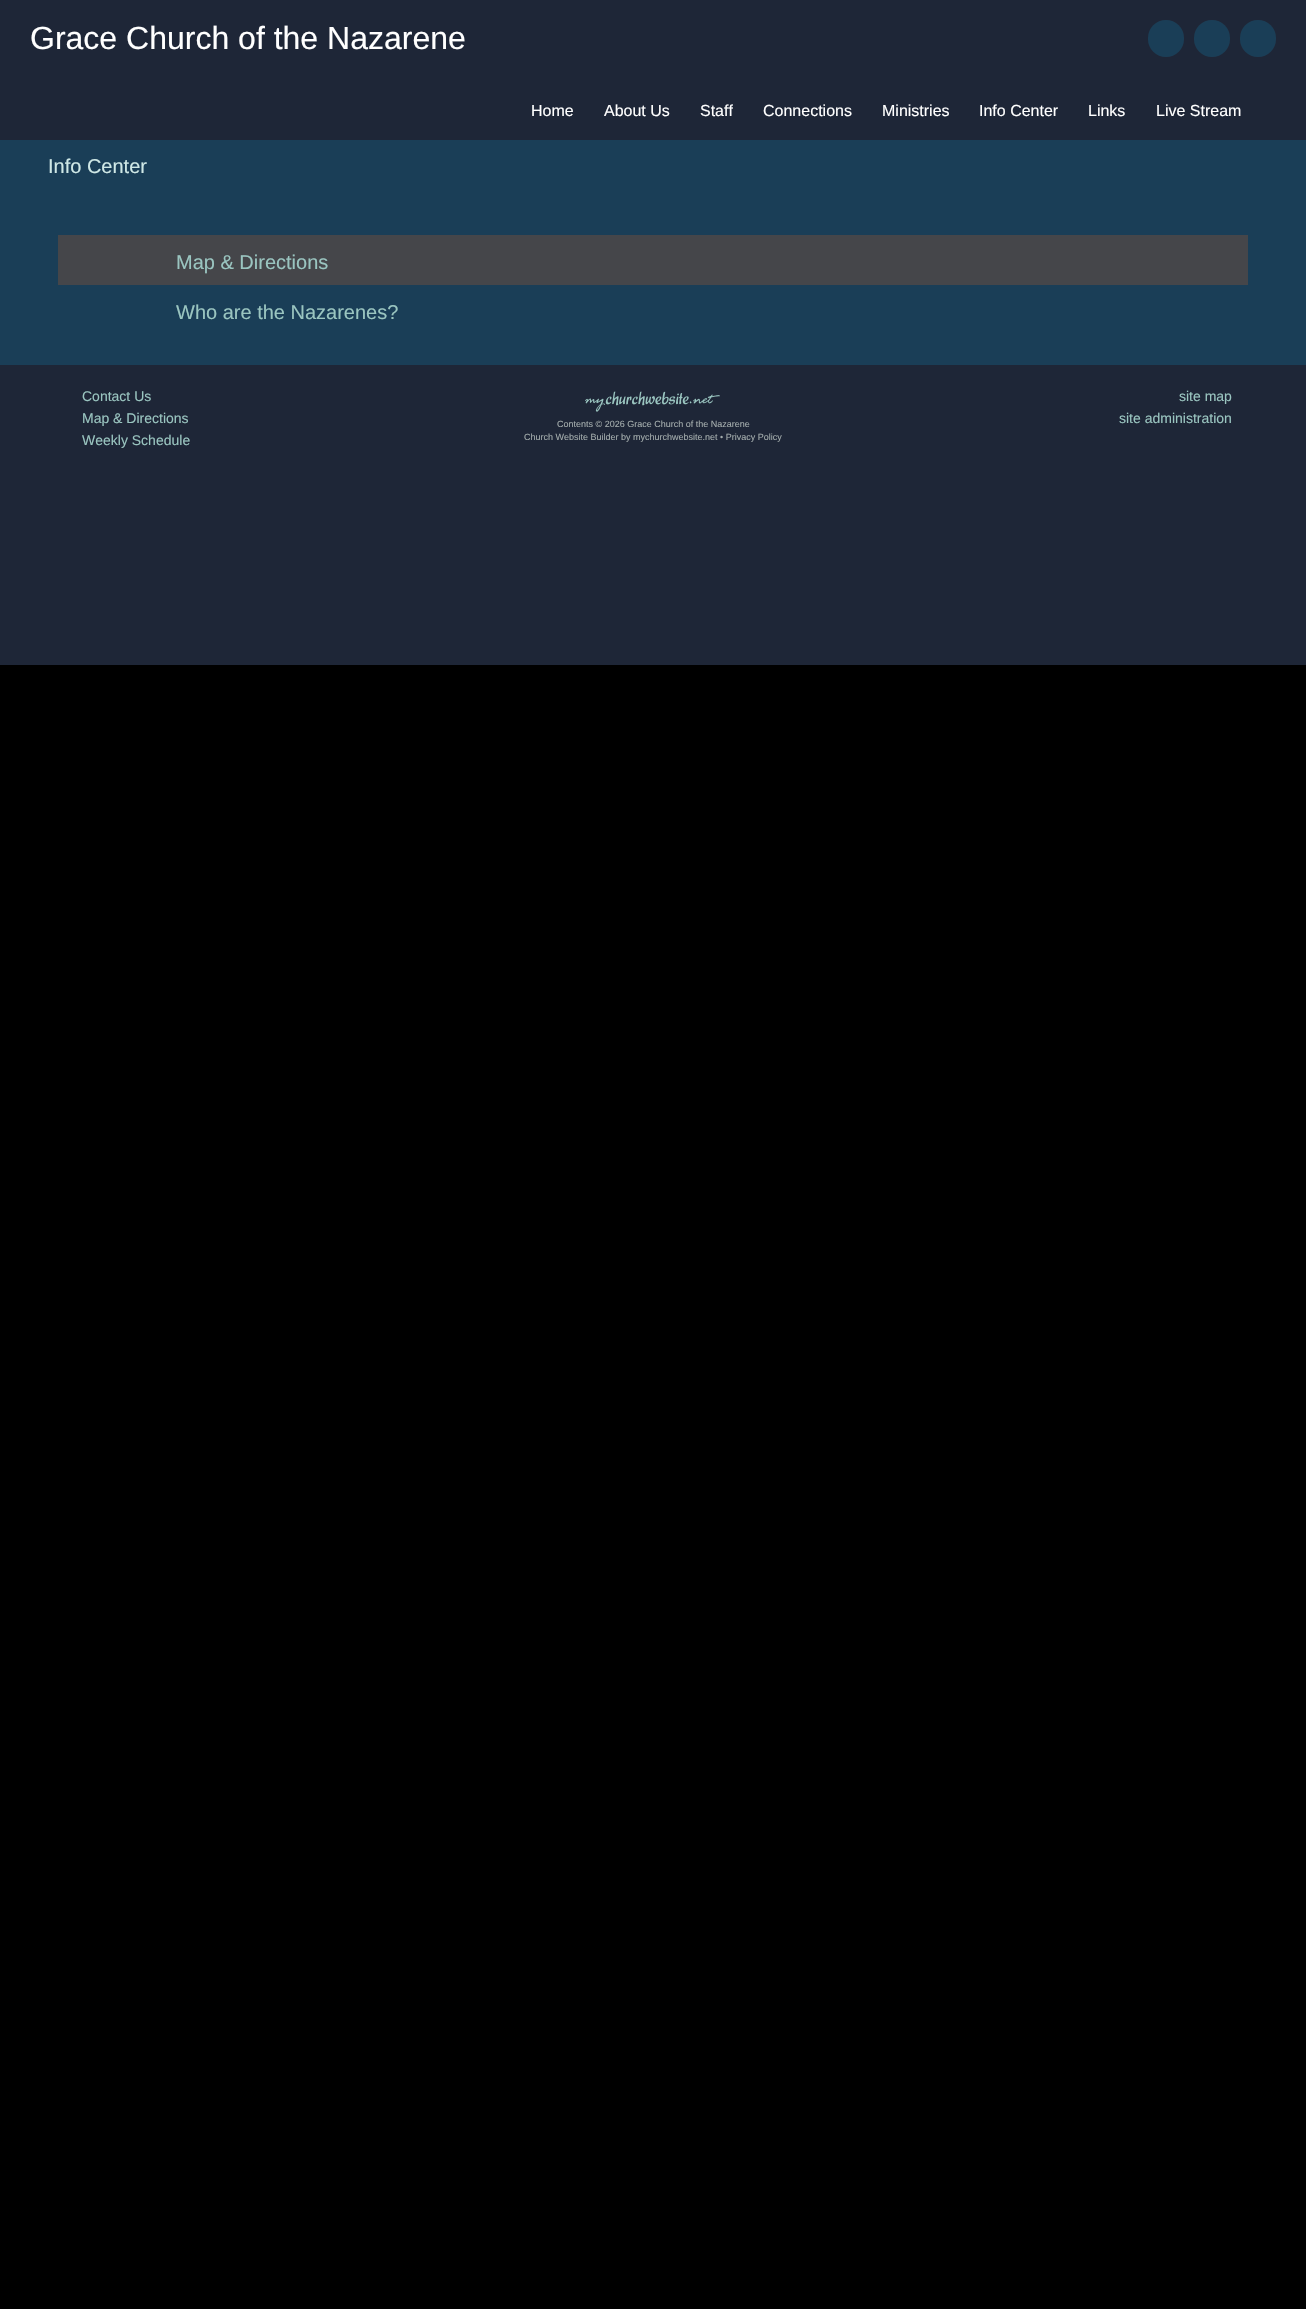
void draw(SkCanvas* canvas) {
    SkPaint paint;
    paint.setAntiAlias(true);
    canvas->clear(0xFF000000);
    paint.setColor(0xFF1E2637);
    canvas->drawRect(SkRect::MakeXYWH(0, 0, 1306, 140), paint);
    SkFont font1(fontMgr->matchFamilyStyle("Liberation Sans", SkFontStyle::Normal()), 32);
    font1.setSubpixel(true);
    paint.setColor(0xFFFFFFFF);
    canvas->drawString("Grace Church of the Nazarene", 30, 49, font1, paint);
    paint.setColor(0xFF1A3E57);
    canvas->drawRoundRect(SkRect::MakeXYWH(1148, 20, 36, 37), 18, 18, paint);
    canvas->drawRoundRect(SkRect::MakeXYWH(1194, 20, 36, 37), 18, 18, paint);
    canvas->drawRoundRect(SkRect::MakeXYWH(1240, 20, 36, 37), 18, 18, paint);
    SkFont font2(fontMgr->matchFamilyStyle("Liberation Sans", SkFontStyle::Normal()), 16);
    font2.setSubpixel(true);
    paint.setColor(0xFFFFFFFF);
    canvas->drawString("Home", 531, 116, font2, paint);
    canvas->drawString("About Us", 604, 116, font2, paint);
    canvas->drawString("Staff", 700, 116, font2, paint);
    canvas->drawString("Connections", 763, 116, font2, paint);
    canvas->drawString("Ministries", 882, 116, font2, paint);
    canvas->drawString("Info Center", 979, 116, font2, paint);
    canvas->drawString("Links", 1088, 116, font2, paint);
    canvas->drawString("Live Stream", 1156, 116, font2, paint);
    paint.setColor(0xFF1A3E57);
    canvas->drawRect(SkRect::MakeXYWH(0, 140, 1306, 225), paint);
    SkFont font3(fontMgr->matchFamilyStyle("Liberation Sans", SkFontStyle::Normal()), 20);
    font3.setSubpixel(true);
    paint.setColor(0xFFCFE8E6);
    canvas->drawString("Info Center", 48, 173, font3, paint);
    paint.setColor(0xFF45464A);
    canvas->drawRect(SkRect::MakeXYWH(58, 235, 1190, 50), paint);
    paint.setColor(0xFF9AC5C0);
    canvas->drawString("Map & Directions", 176, 269, font3, paint);
    canvas->drawString("Who are the Nazarenes?", 176, 319, font3, paint);
    paint.setColor(0xFF1E2637);
    canvas->drawRect(SkRect::MakeXYWH(0, 365, 1306, 300), paint);
    SkFont font4(fontMgr->matchFamilyStyle("Liberation Sans", SkFontStyle::Normal()), 14);
    font4.setSubpixel(true);
    paint.setColor(0xFF9AC5C0);
    canvas->drawString("Contact Us", 82, 401, font4, paint);
    canvas->drawString("Map & Directions", 82, 423, font4, paint);
    canvas->drawString("Weekly Schedule", 82, 445, font4, paint);
    canvas->drawImageRect(SkImages::DeferredFromEncodedData(SkData::MakeFromFileName("img1.png")), SkRect::MakeXYWH(585, 391, 135, 21), SkSamplingOptions());
    SkFont font5(fontMgr->matchFamilyStyle("Liberation Sans", SkFontStyle::Normal()), 9);
    font5.setSubpixel(true);
    paint.setColor(0xFFA3ACAC);
    canvas->drawString("Contents © 2026 Grace Church of the Nazarene", 557, 427, font5, paint);
    canvas->drawString("Church Website Builder by mychurchwebsite.net • Privacy Policy", 524, 440, font5, paint);
    paint.setColor(0xFF9AC5C0);
    canvas->drawString("site map", 1179, 401, font4, paint);
    canvas->drawString("site administration", 1119, 423, font4, paint);
}
